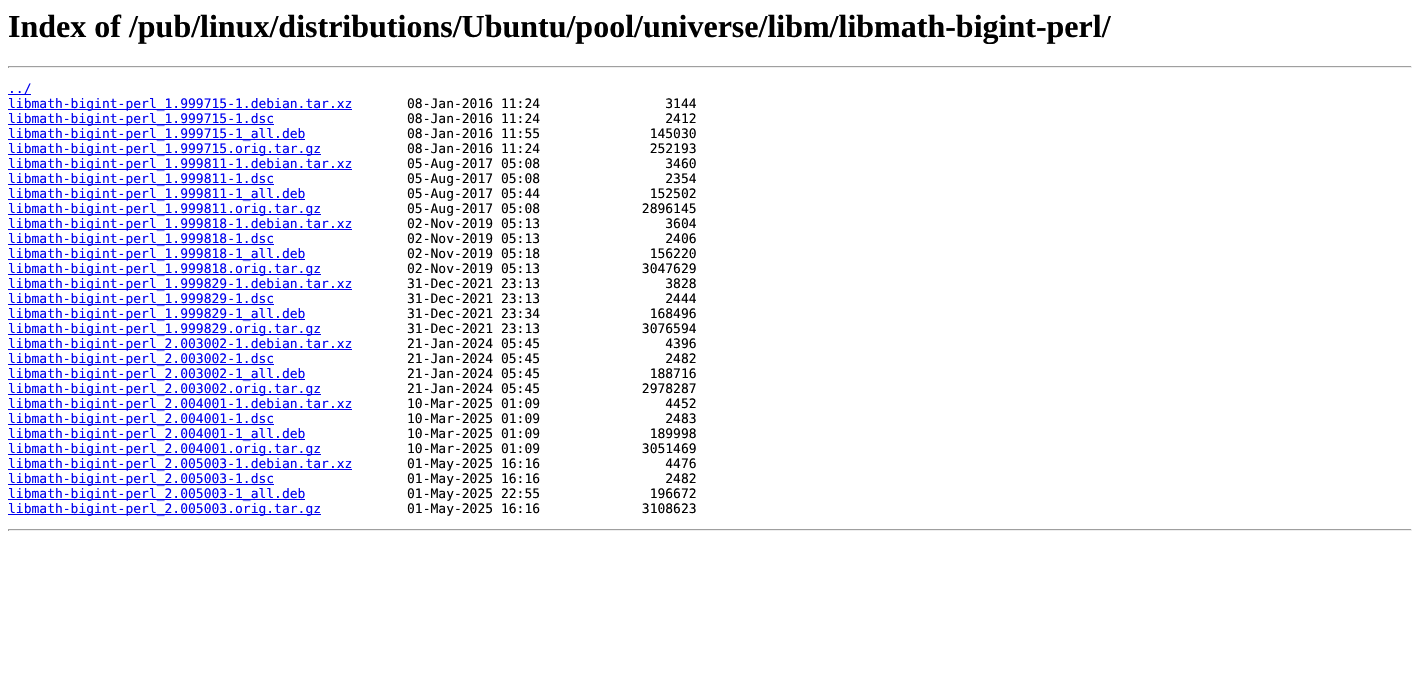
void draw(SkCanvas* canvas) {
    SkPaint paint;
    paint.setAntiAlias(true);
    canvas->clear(0xFFFFFFFF);
    SkFont font1(fontMgr->matchFamilyStyle("Liberation Serif", SkFontStyle::Bold()), 32);
    font1.setSubpixel(true);
    paint.setColor(0xFF000000);
    canvas->drawString("Index of /pub/linux/distributions/Ubuntu/pool/universe/libm/libmath-bigint-perl/", 8, 37, font1, paint);
    paint.setColor(0xFF9F9F9F);
    canvas->drawRect(SkRect::MakeXYWH(8, 66, 1404, 1), paint);
    paint.setColor(0xFFEEEEEE);
    canvas->drawRect(SkRect::MakeXYWH(1411, 66, 1, 2), paint);
    canvas->drawRect(SkRect::MakeXYWH(8, 67, 1404, 1), paint);
    paint.setColor(0xFF9F9F9F);
    canvas->drawRect(SkRect::MakeXYWH(8, 66, 1, 2), paint);
    paint.setColor(0xFF0000EE);
    canvas->drawRect(SkRect::MakeXYWH(8, 94, 23, 1), paint);
    SkFont font2(fontMgr->matchFamilyStyle("DejaVu Sans Mono", SkFontStyle::Normal()), 13);
    font2.setSubpixel(true);
    canvas->drawString("../", 8, 93, font2, paint);
    canvas->drawRect(SkRect::MakeXYWH(8, 109, 344, 1), paint);
    canvas->drawString("libmath-bigint-perl_1.999715-1.debian.tar.xz", 8, 108, font2, paint);
    paint.setColor(0xFF000000);
    canvas->drawString("08-Jan-2016 11:24                3144", 407, 108, font2, paint);
    paint.setColor(0xFF0000EE);
    canvas->drawRect(SkRect::MakeXYWH(8, 124, 266, 1), paint);
    canvas->drawString("libmath-bigint-perl_1.999715-1.dsc", 8, 123, font2, paint);
    paint.setColor(0xFF000000);
    canvas->drawString("08-Jan-2016 11:24                2412", 407, 123, font2, paint);
    paint.setColor(0xFF0000EE);
    canvas->drawRect(SkRect::MakeXYWH(8, 139, 297, 1), paint);
    canvas->drawString("libmath-bigint-perl_1.999715-1_all.deb", 8, 138, font2, paint);
    paint.setColor(0xFF000000);
    canvas->drawString("08-Jan-2016 11:55              145030", 407, 138, font2, paint);
    paint.setColor(0xFF0000EE);
    canvas->drawRect(SkRect::MakeXYWH(8, 154, 313, 1), paint);
    canvas->drawString("libmath-bigint-perl_1.999715.orig.tar.gz", 8, 153, font2, paint);
    paint.setColor(0xFF000000);
    canvas->drawString("08-Jan-2016 11:24              252193", 407, 153, font2, paint);
    paint.setColor(0xFF0000EE);
    canvas->drawRect(SkRect::MakeXYWH(8, 169, 344, 1), paint);
    canvas->drawString("libmath-bigint-perl_1.999811-1.debian.tar.xz", 8, 168, font2, paint);
    paint.setColor(0xFF000000);
    canvas->drawString("05-Aug-2017 05:08                3460", 407, 168, font2, paint);
    paint.setColor(0xFF0000EE);
    canvas->drawRect(SkRect::MakeXYWH(8, 184, 266, 1), paint);
    canvas->drawString("libmath-bigint-perl_1.999811-1.dsc", 8, 183, font2, paint);
    paint.setColor(0xFF000000);
    canvas->drawString("05-Aug-2017 05:08                2354", 407, 183, font2, paint);
    paint.setColor(0xFF0000EE);
    canvas->drawRect(SkRect::MakeXYWH(8, 199, 297, 1), paint);
    canvas->drawString("libmath-bigint-perl_1.999811-1_all.deb", 8, 198, font2, paint);
    paint.setColor(0xFF000000);
    canvas->drawString("05-Aug-2017 05:44              152502", 407, 198, font2, paint);
    paint.setColor(0xFF0000EE);
    canvas->drawRect(SkRect::MakeXYWH(8, 214, 313, 1), paint);
    canvas->drawString("libmath-bigint-perl_1.999811.orig.tar.gz", 8, 213, font2, paint);
    paint.setColor(0xFF000000);
    canvas->drawString("05-Aug-2017 05:08             2896145", 407, 213, font2, paint);
    paint.setColor(0xFF0000EE);
    canvas->drawRect(SkRect::MakeXYWH(8, 229, 344, 1), paint);
    canvas->drawString("libmath-bigint-perl_1.999818-1.debian.tar.xz", 8, 228, font2, paint);
    paint.setColor(0xFF000000);
    canvas->drawString("02-Nov-2019 05:13                3604", 407, 228, font2, paint);
    paint.setColor(0xFF0000EE);
    canvas->drawRect(SkRect::MakeXYWH(8, 244, 266, 1), paint);
    canvas->drawString("libmath-bigint-perl_1.999818-1.dsc", 8, 243, font2, paint);
    paint.setColor(0xFF000000);
    canvas->drawString("02-Nov-2019 05:13                2406", 407, 243, font2, paint);
    paint.setColor(0xFF0000EE);
    canvas->drawRect(SkRect::MakeXYWH(8, 259, 297, 1), paint);
    canvas->drawString("libmath-bigint-perl_1.999818-1_all.deb", 8, 258, font2, paint);
    paint.setColor(0xFF000000);
    canvas->drawString("02-Nov-2019 05:18              156220", 407, 258, font2, paint);
    paint.setColor(0xFF0000EE);
    canvas->drawRect(SkRect::MakeXYWH(8, 274, 313, 1), paint);
    canvas->drawString("libmath-bigint-perl_1.999818.orig.tar.gz", 8, 273, font2, paint);
    paint.setColor(0xFF000000);
    canvas->drawString("02-Nov-2019 05:13             3047629", 407, 273, font2, paint);
    paint.setColor(0xFF0000EE);
    canvas->drawRect(SkRect::MakeXYWH(8, 289, 344, 1), paint);
    canvas->drawString("libmath-bigint-perl_1.999829-1.debian.tar.xz", 8, 288, font2, paint);
    paint.setColor(0xFF000000);
    canvas->drawString("31-Dec-2021 23:13                3828", 407, 288, font2, paint);
    paint.setColor(0xFF0000EE);
    canvas->drawRect(SkRect::MakeXYWH(8, 304, 266, 1), paint);
    canvas->drawString("libmath-bigint-perl_1.999829-1.dsc", 8, 303, font2, paint);
    paint.setColor(0xFF000000);
    canvas->drawString("31-Dec-2021 23:13                2444", 407, 303, font2, paint);
    paint.setColor(0xFF0000EE);
    canvas->drawRect(SkRect::MakeXYWH(8, 319, 297, 1), paint);
    canvas->drawString("libmath-bigint-perl_1.999829-1_all.deb", 8, 318, font2, paint);
    paint.setColor(0xFF000000);
    canvas->drawString("31-Dec-2021 23:34              168496", 407, 318, font2, paint);
    paint.setColor(0xFF0000EE);
    canvas->drawRect(SkRect::MakeXYWH(8, 334, 313, 1), paint);
    canvas->drawString("libmath-bigint-perl_1.999829.orig.tar.gz", 8, 333, font2, paint);
    paint.setColor(0xFF000000);
    canvas->drawString("31-Dec-2021 23:13             3076594", 407, 333, font2, paint);
    paint.setColor(0xFF0000EE);
    canvas->drawRect(SkRect::MakeXYWH(8, 349, 344, 1), paint);
    canvas->drawString("libmath-bigint-perl_2.003002-1.debian.tar.xz", 8, 348, font2, paint);
    paint.setColor(0xFF000000);
    canvas->drawString("21-Jan-2024 05:45                4396", 407, 348, font2, paint);
    paint.setColor(0xFF0000EE);
    canvas->drawRect(SkRect::MakeXYWH(8, 364, 266, 1), paint);
    canvas->drawString("libmath-bigint-perl_2.003002-1.dsc", 8, 363, font2, paint);
    paint.setColor(0xFF000000);
    canvas->drawString("21-Jan-2024 05:45                2482", 407, 363, font2, paint);
    paint.setColor(0xFF0000EE);
    canvas->drawRect(SkRect::MakeXYWH(8, 379, 297, 1), paint);
    canvas->drawString("libmath-bigint-perl_2.003002-1_all.deb", 8, 378, font2, paint);
    paint.setColor(0xFF000000);
    canvas->drawString("21-Jan-2024 05:45              188716", 407, 378, font2, paint);
    paint.setColor(0xFF0000EE);
    canvas->drawRect(SkRect::MakeXYWH(8, 394, 313, 1), paint);
    canvas->drawString("libmath-bigint-perl_2.003002.orig.tar.gz", 8, 393, font2, paint);
    paint.setColor(0xFF000000);
    canvas->drawString("21-Jan-2024 05:45             2978287", 407, 393, font2, paint);
    paint.setColor(0xFF0000EE);
    canvas->drawRect(SkRect::MakeXYWH(8, 409, 344, 1), paint);
    canvas->drawString("libmath-bigint-perl_2.004001-1.debian.tar.xz", 8, 408, font2, paint);
    paint.setColor(0xFF000000);
    canvas->drawString("10-Mar-2025 01:09                4452", 407, 408, font2, paint);
    paint.setColor(0xFF0000EE);
    canvas->drawRect(SkRect::MakeXYWH(8, 424, 266, 1), paint);
    canvas->drawString("libmath-bigint-perl_2.004001-1.dsc", 8, 423, font2, paint);
    paint.setColor(0xFF000000);
    canvas->drawString("10-Mar-2025 01:09                2483", 407, 423, font2, paint);
    paint.setColor(0xFF0000EE);
    canvas->drawRect(SkRect::MakeXYWH(8, 439, 297, 1), paint);
    canvas->drawString("libmath-bigint-perl_2.004001-1_all.deb", 8, 438, font2, paint);
    paint.setColor(0xFF000000);
    canvas->drawString("10-Mar-2025 01:09              189998", 407, 438, font2, paint);
    paint.setColor(0xFF0000EE);
    canvas->drawRect(SkRect::MakeXYWH(8, 454, 313, 1), paint);
    canvas->drawString("libmath-bigint-perl_2.004001.orig.tar.gz", 8, 453, font2, paint);
    paint.setColor(0xFF000000);
    canvas->drawString("10-Mar-2025 01:09             3051469", 407, 453, font2, paint);
    paint.setColor(0xFF0000EE);
    canvas->drawRect(SkRect::MakeXYWH(8, 469, 344, 1), paint);
    canvas->drawString("libmath-bigint-perl_2.005003-1.debian.tar.xz", 8, 468, font2, paint);
    paint.setColor(0xFF000000);
    canvas->drawString("01-May-2025 16:16                4476", 407, 468, font2, paint);
    paint.setColor(0xFF0000EE);
    canvas->drawRect(SkRect::MakeXYWH(8, 484, 266, 1), paint);
    canvas->drawString("libmath-bigint-perl_2.005003-1.dsc", 8, 483, font2, paint);
    paint.setColor(0xFF000000);
    canvas->drawString("01-May-2025 16:16                2482", 407, 483, font2, paint);
    paint.setColor(0xFF0000EE);
    canvas->drawRect(SkRect::MakeXYWH(8, 499, 297, 1), paint);
    canvas->drawString("libmath-bigint-perl_2.005003-1_all.deb", 8, 498, font2, paint);
    paint.setColor(0xFF000000);
    canvas->drawString("01-May-2025 22:55              196672", 407, 498, font2, paint);
    paint.setColor(0xFF0000EE);
    canvas->drawRect(SkRect::MakeXYWH(8, 514, 313, 1), paint);
    canvas->drawString("libmath-bigint-perl_2.005003.orig.tar.gz", 8, 513, font2, paint);
    paint.setColor(0xFF000000);
    canvas->drawString("01-May-2025 16:16             3108623", 407, 513, font2, paint);
    paint.setColor(0xFF9F9F9F);
    canvas->drawRect(SkRect::MakeXYWH(8, 529, 1404, 1), paint);
    paint.setColor(0xFFEEEEEE);
    canvas->drawRect(SkRect::MakeXYWH(1411, 529, 1, 2), paint);
    canvas->drawRect(SkRect::MakeXYWH(8, 530, 1404, 1), paint);
    paint.setColor(0xFF9F9F9F);
    canvas->drawRect(SkRect::MakeXYWH(8, 529, 1, 2), paint);
}
